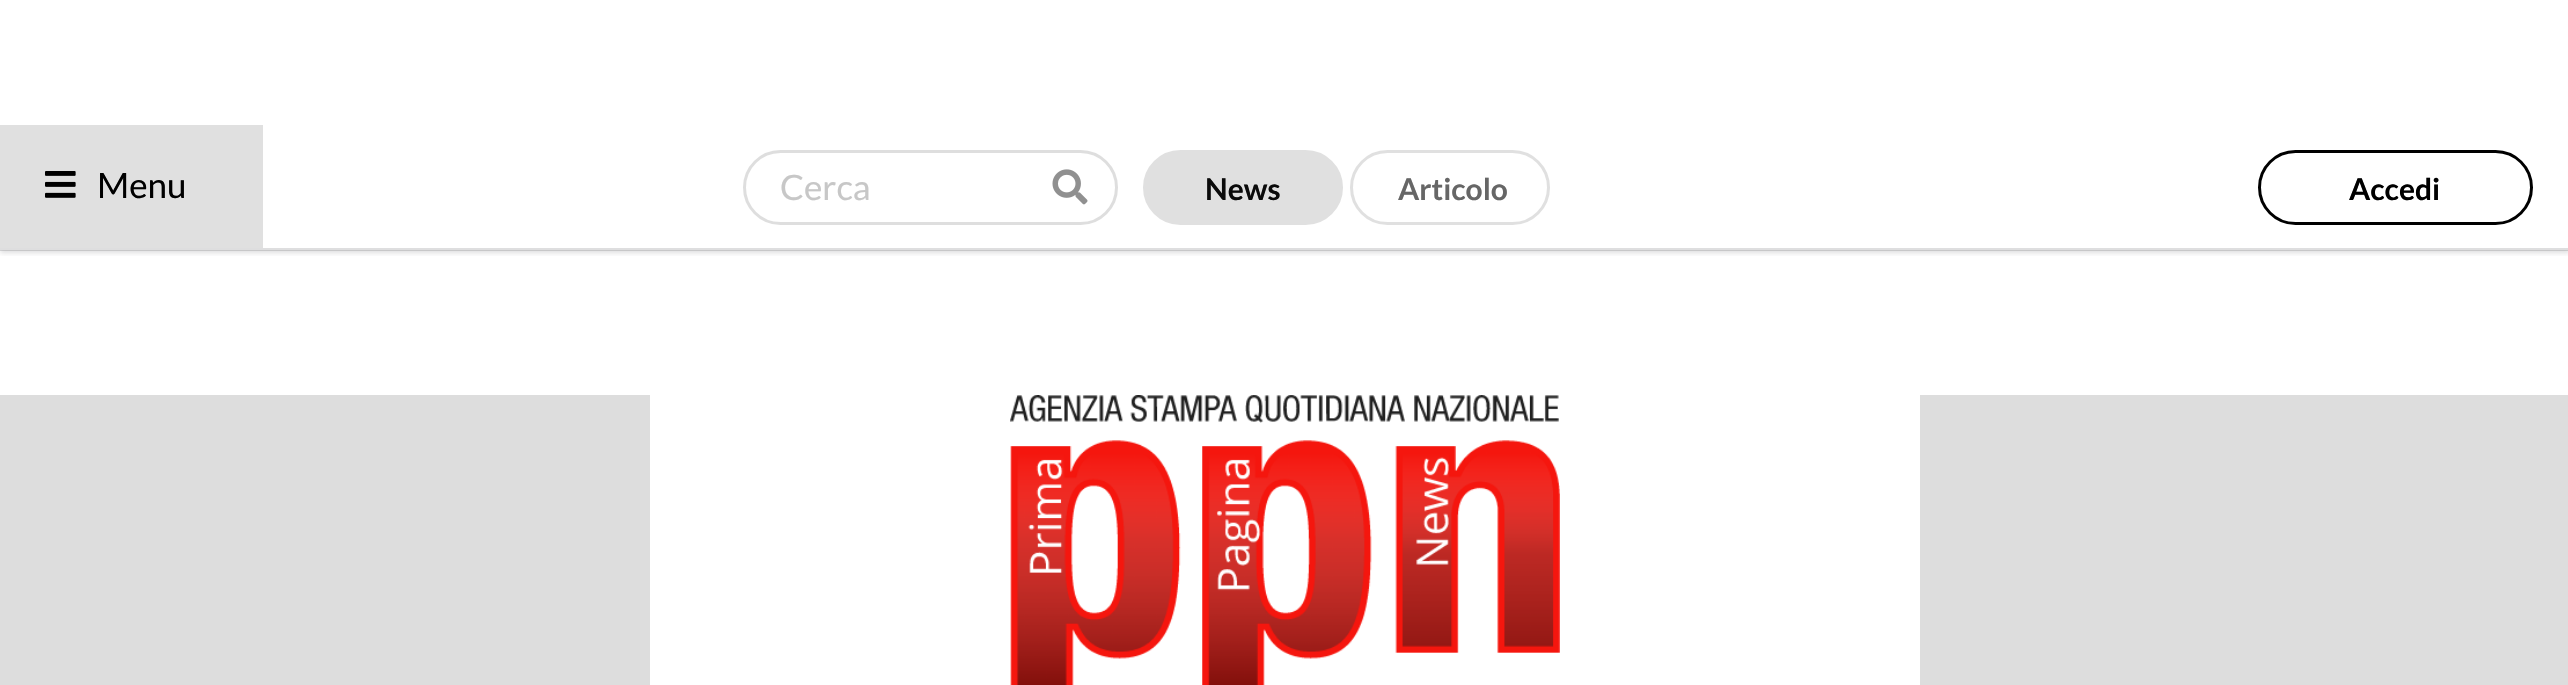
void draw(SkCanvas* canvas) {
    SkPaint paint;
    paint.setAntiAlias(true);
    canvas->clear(0xFFFFFFFF);
    canvas->save();
    canvas->clipRect(SkRect::MakeXYWH(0, 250, 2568, 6));
    paint.setColor(0x26222426);
    paint.setMaskFilter(SkMaskFilter::MakeBlur(kNormal_SkBlurStyle, 2.5f));
    canvas->drawRect(SkRect::MakeXYWH(0, 128, 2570, 125), paint);
    paint.setMaskFilter(nullptr);
    canvas->restore();
    canvas->drawRect(SkRect::MakeXYWH(0, 248, 2568, 3), paint);
    paint.setColor(0xFFE0E0E0);
    canvas->drawRect(SkRect::MakeXYWH(0, 125, 263, 123), paint);
    canvas->drawImageRect(SkImages::DeferredFromEncodedData(SkData::MakeFromFileName("img1.png")), SkRect::MakeXYWH(45, 171, 31, 27), SkSamplingOptions());
    SkFont font1(fontMgr->matchFamilyStyle("Lato", SkFontStyle::Normal()), 35);
    font1.setSubpixel(true);
    paint.setColor(0xFF000000);
    canvas->drawString("Menu", 97, 198, font1, paint);
    paint.setStyle(SkPaint::kStroke_Style);
    paint.setStrokeWidth(3);
    paint.setColor(0xFFDEDEDE);
    canvas->drawRoundRect(SkRect::MakeXYWH(744.5f, 151.5f, 372, 72), 36, 36, paint);
    paint.setStyle(SkPaint::kFill_Style);
    paint.setColor(0xFFC7C7C7);
    canvas->drawString("Cerca", 780, 200, font1, paint);
    canvas->drawImageRect(SkImages::DeferredFromEncodedData(SkData::MakeFromFileName("img2.png")), SkRect::MakeXYWH(1052, 169, 36, 36), SkSamplingOptions());
    paint.setColor(0xFFE0E0E0);
    canvas->drawRoundRect(SkRect::MakeXYWH(1144.5f, 151.5f, 197, 72), 36, 36, paint);
    paint.setStyle(SkPaint::kStroke_Style);
    canvas->drawRoundRect(SkRect::MakeXYWH(1144.5f, 151.5f, 197, 72), 36, 36, paint);
    SkFont font2(fontMgr->matchFamilyStyle("Lato", SkFontStyle::Bold()), 30);
    font2.setSubpixel(true);
    paint.setStyle(SkPaint::kFill_Style);
    paint.setColor(0xFF0B0B0B);
    canvas->drawString("News", 1205, 200, font2, paint);
    paint.setStyle(SkPaint::kStroke_Style);
    paint.setColor(0xFFE0E0E0);
    canvas->drawRoundRect(SkRect::MakeXYWH(1351.5f, 151.5f, 197, 72), 36, 36, paint);
    paint.setStyle(SkPaint::kFill_Style);
    paint.setColor(0xFF666666);
    canvas->drawString("Articolo", 1398, 200, font2, paint);
    paint.setStyle(SkPaint::kStroke_Style);
    paint.setColor(0xFF000000);
    canvas->drawRoundRect(SkRect::MakeXYWH(2259.5f, 151.5f, 272, 72), 36, 36, paint);
    paint.setStyle(SkPaint::kFill_Style);
    canvas->drawString("Accedi", 2349, 200, font2, paint);
    paint.setColor(0xFFDDDDDD);
    canvas->drawRect(SkRect::MakeXYWH(0, 395, 650, 290), paint);
    canvas->drawImageRect(SkImages::DeferredFromEncodedData(SkData::MakeFromFileName("img3.png")), SkRect::MakeXYWH(1010, 395, 550, 290), SkSamplingOptions());
    canvas->drawRect(SkRect::MakeXYWH(1920, 395, 648, 290), paint);
}
